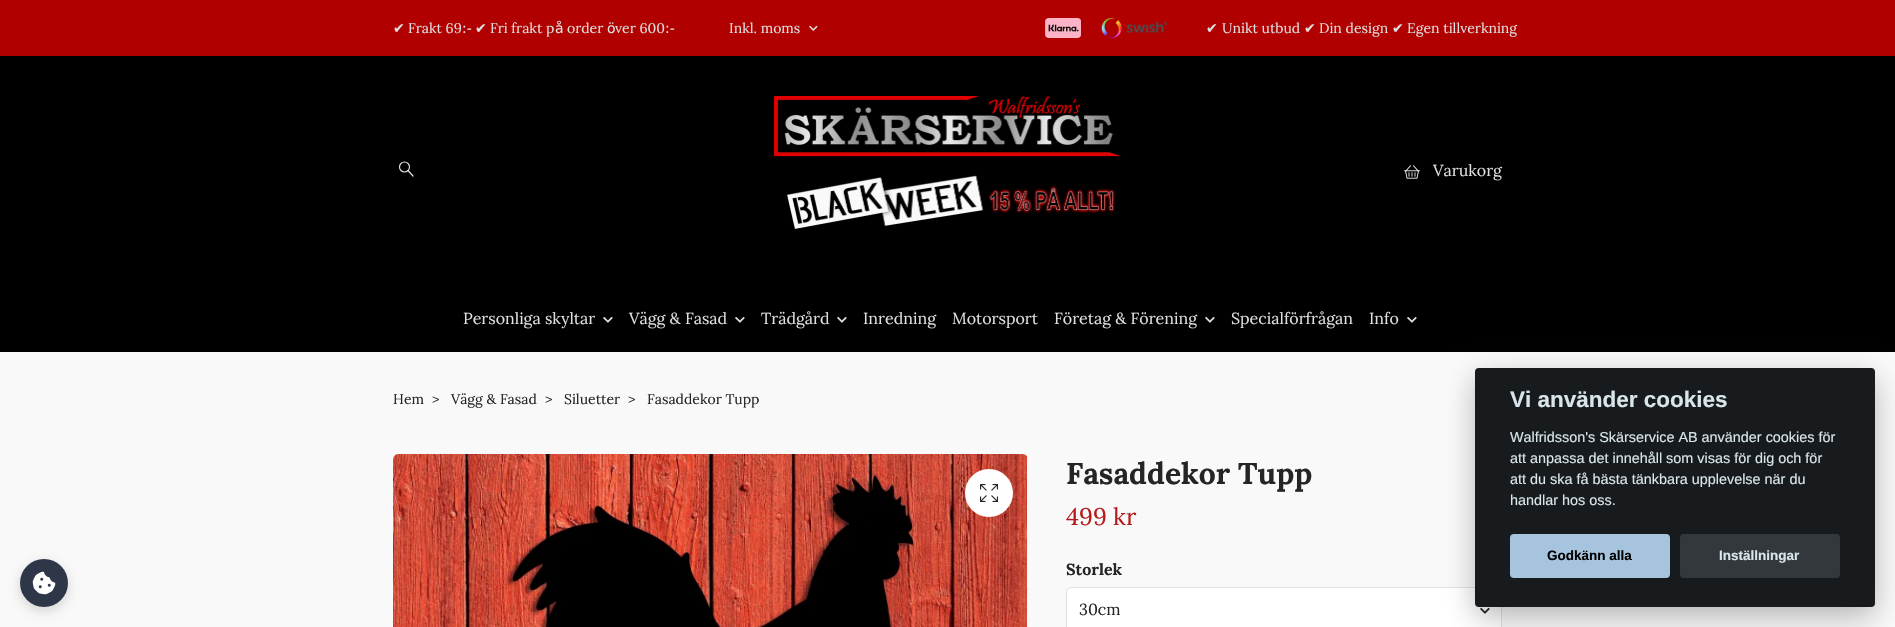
void draw(SkCanvas* canvas) {
    SkPaint paint;
    paint.setAntiAlias(true);
    canvas->clear(0xFFF9F9F9);
    paint.setColor(0xFFB10000);
    canvas->drawRect(SkRect::MakeXYWH(0, 0, 1895, 56), paint);
    SkFont font1(fontMgr->matchFamilyStyle("DejaVu Sans", SkFontStyle::Normal()), 14);
    font1.setSubpixel(true);
    paint.setColor(0xFFDFDFDF);
    canvas->drawString("✔", 393, 33, font1, paint);
    SkFont font2(fontMgr->matchFamilyStyle("Lora", SkFontStyle::Normal()), 14);
    font2.setSubpixel(true);
    canvas->drawString("Frakt 69", 408, 33, font2, paint);
    canvas->drawString(":-", 462, 33, font1, paint);
    canvas->drawString("✔", 475, 33, font1, paint);
    canvas->drawString("Fri frakt p", 490, 33, font2, paint);
    canvas->drawString("å", 555, 33, font1, paint);
    canvas->drawString("order", 567, 33, font2, paint);
    canvas->drawString("ö", 607, 33, font1, paint);
    canvas->drawString("ver 600", 615, 33, font2, paint);
    canvas->drawString(":-", 665, 33, font1, paint);
    canvas->drawString("Inkl. moms", 729, 33, font2, paint);
    canvas->drawImageRect(SkImages::DeferredFromEncodedData(SkData::MakeFromFileName("img1.png")), SkRect::MakeXYWH(809, 25, 9, 6), SkSamplingOptions());
    canvas->drawImageRect(SkImages::DeferredFromEncodedData(SkData::MakeFromFileName("img2.png")), SkRect::MakeXYWH(1045, 18, 36, 20), SkSamplingOptions());
    canvas->drawImageRect(SkImages::DeferredFromEncodedData(SkData::MakeFromFileName("img3.png")), SkRect::MakeXYWH(1101, 18, 66, 20), SkSamplingOptions());
    canvas->drawString("✔", 1206, 33, font1, paint);
    canvas->drawString("Unikt utbud", 1222, 33, font2, paint);
    canvas->drawString("✔", 1304, 33, font1, paint);
    canvas->drawString("Din design", 1319, 33, font2, paint);
    canvas->drawString("✔", 1392, 33, font1, paint);
    canvas->drawString("Egen tillverkning", 1407, 33, font2, paint);
    paint.setColor(0xFF000000);
    canvas->drawRect(SkRect::MakeXYWH(0, 56, 1895, 296), paint);
    paint.setStyle(SkPaint::kStroke_Style);
    paint.setStrokeWidth(1.2f);
    paint.setStrokeCap(SkPaint::kRound_Cap);
    paint.setStrokeJoin(SkPaint::kRound_Join);
    paint.setColor(0xFFDFDFDF);
    canvas->drawPath(SkPathBuilder().moveTo(408, 170.5f).lineTo(413, 176).detach(), paint);
    paint.setStrokeCap(SkPaint::kButt_Cap);
    paint.setStrokeJoin(SkPaint::kMiter_Join);
    canvas->drawCircle(404.5f, 167, 5, paint);
    canvas->drawImageRect(SkImages::DeferredFromEncodedData(SkData::MakeFromFileName("img4.png")), SkRect::MakeXYWH(774, 96, 347, 133), SkSamplingOptions());
    canvas->drawImageRect(SkImages::DeferredFromEncodedData(SkData::MakeFromFileName("img5.png")), SkRect::MakeXYWH(1404, 165, 16, 14), SkSamplingOptions());
    SkFont font3(fontMgr->matchFamilyStyle("Lora", SkFontStyle::Normal()), 16);
    font3.setSubpixel(true);
    paint.setStyle(SkPaint::kFill_Style);
    canvas->drawString("Varukorg", 1433, 176, font3, paint);
    canvas->drawString("Personliga skyltar", 463, 324, font3, paint);
    canvas->drawImageRect(SkImages::DeferredFromEncodedData(SkData::MakeFromFileName("img6.png")), SkRect::MakeXYWH(603, 317, 10, 6), SkSamplingOptions());
    canvas->drawString("Vägg & Fasad", 629, 324, font3, paint);
    canvas->drawImageRect(SkImages::DeferredFromEncodedData(SkData::MakeFromFileName("img6.png")), SkRect::MakeXYWH(735, 317, 10, 6), SkSamplingOptions());
    canvas->drawString("Trädgård", 761, 324, font3, paint);
    canvas->drawImageRect(SkImages::DeferredFromEncodedData(SkData::MakeFromFileName("img6.png")), SkRect::MakeXYWH(837, 317, 10, 6), SkSamplingOptions());
    canvas->drawString("Inredning", 863, 324, font3, paint);
    canvas->drawString("Motorsport", 952, 324, font3, paint);
    canvas->drawString("Företag & Förening", 1054, 324, font3, paint);
    canvas->drawImageRect(SkImages::DeferredFromEncodedData(SkData::MakeFromFileName("img6.png")), SkRect::MakeXYWH(1205, 317, 10, 6), SkSamplingOptions());
    canvas->drawString("Specialförfrågan", 1231, 324, font3, paint);
    canvas->drawString("Info", 1369, 324, font3, paint);
    canvas->drawImageRect(SkImages::DeferredFromEncodedData(SkData::MakeFromFileName("img6.png")), SkRect::MakeXYWH(1407, 317, 10, 6), SkSamplingOptions());
    paint.setColor(0xFF252525);
    canvas->drawString("Hem", 393, 404, font2, paint);
    canvas->drawString(">", 432, 404, font2, paint);
    canvas->drawString("Vägg & Fasad", 451, 404, font2, paint);
    canvas->drawString(">", 545, 404, font2, paint);
    canvas->drawString("Siluetter", 564, 404, font2, paint);
    canvas->drawString(">", 628, 404, font2, paint);
    canvas->drawString("Fasaddekor Tupp", 647, 404, font2, paint);
    paint.setColor(0xFFFFFFFF);
    canvas->drawRoundRect(SkRect::MakeXYWH(1066.5f, 587.5f, 435, 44), 4.5f, 4.5f, paint);
    paint.setStyle(SkPaint::kStroke_Style);
    paint.setStrokeWidth(1);
    paint.setColor(0xFFDEE2E6);
    canvas->drawRoundRect(SkRect::MakeXYWH(1066.5f, 587.5f, 435, 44), 4.5f, 4.5f, paint);
    canvas->drawImageRect(SkImages::DeferredFromEncodedData(SkData::MakeFromFileName("img10.png")), SkRect::MakeXYWH(1480, 608, 10, 6), SkSamplingOptions());
    paint.setStyle(SkPaint::kFill_Style);
    paint.setColor(0x47020203);
    paint.setMaskFilter(SkMaskFilter::MakeBlur(kNormal_SkBlurStyle, 15));
    canvas->drawRoundRect(SkRect::MakeXYWH(1475, 378, 400, 239), 4, 4, paint);
    paint.setMaskFilter(nullptr);
    paint.setColor(0xFF181B1D);
    canvas->drawRoundRect(SkRect::MakeXYWH(1475, 368, 400, 239), 4, 4, paint);
    SkFont font4(fontMgr->matchFamilyStyle("Liberation Sans", SkFontStyle::Bold()), 22.5f);
    font4.setSubpixel(true);
    paint.setColor(0xFFD8E5EA);
    canvas->drawString("Vi använder cookies", 1510, 407, font4, paint);
    SkFont font5(fontMgr->matchFamilyStyle("Liberation Sans", SkFontStyle::Normal()), 14.4f);
    font5.setSubpixel(true);
    canvas->drawString("Walfridsson's Skärservice AB använder cookies för", 1510, 442, font5, paint);
    canvas->drawString("att anpassa det innehåll som visas för dig och för", 1510, 463, font5, paint);
    canvas->drawString("att du ska få bästa tänkbara upplevelse när du", 1510, 484, font5, paint);
    canvas->drawString("handlar hos oss.", 1510, 505, font5, paint);
    paint.setColor(0xFFA6C4DD);
    canvas->drawRoundRect(SkRect::MakeXYWH(1510, 534, 160, 44), 4, 4, paint);
    SkFont font6(fontMgr->matchFamilyStyle("Liberation Sans", SkFontStyle::Bold()), 13.5f);
    font6.setSubpixel(true);
    paint.setColor(0xFF000000);
    canvas->drawString("Godkänn alla", 1547, 560, font6, paint);
    paint.setColor(0xFF33383C);
    canvas->drawRoundRect(SkRect::MakeXYWH(1680, 534, 160, 44), 4, 4, paint);
    paint.setColor(0xFFD8E5EA);
    canvas->drawString("Inställningar", 1719, 560, font6, paint);
    paint.setColor(0x26000000);
    paint.setMaskFilter(SkMaskFilter::MakeBlur(kNormal_SkBlurStyle, 6));
    canvas->drawRoundRect(SkRect::MakeXYWH(20, 563, 48, 48), 24, 24, paint);
    paint.setMaskFilter(nullptr);
    paint.setColor(0xFF2D3748);
    canvas->drawCircle(44, 583, 24, paint);
    canvas->drawImageRect(SkImages::DeferredFromEncodedData(SkData::MakeFromFileName("img7.png")), SkRect::MakeXYWH(32, 571, 24, 24), SkSamplingOptions());
    canvas->drawImageRect(SkImages::DeferredFromEncodedData(SkData::MakeFromFileName("img8.png")), SkRect::MakeXYWH(393, 454, 634, 173), SkSamplingOptions());
    paint.setColor(0xFFFFFFFF);
    canvas->drawCircle(989, 493, 24, paint);
    canvas->drawImageRect(SkImages::DeferredFromEncodedData(SkData::MakeFromFileName("img9.png")), SkRect::MakeXYWH(980, 484, 18, 18), SkSamplingOptions());
    SkFont font7(fontMgr->matchFamilyStyle("Lora", SkFontStyle::Bold()), 30);
    font7.setSubpixel(true);
    paint.setColor(0xFF252525);
    canvas->drawString("Fasaddekor Tupp", 1066, 484, font7, paint);
    SkFont font8(fontMgr->matchFamilyStyle("Lora", SkFontStyle::Normal()), 24);
    font8.setSubpixel(true);
    paint.setColor(0xFFB51B1B);
    canvas->drawString("499 kr", 1066, 525, font8, paint);
    SkFont font9(fontMgr->matchFamilyStyle("Lora", SkFontStyle::Bold()), 16);
    font9.setSubpixel(true);
    paint.setColor(0xFF252525);
    canvas->drawString("Storlek", 1066, 575, font9, paint);
    canvas->drawString("30cm", 1079, 615, font3, paint);
}
